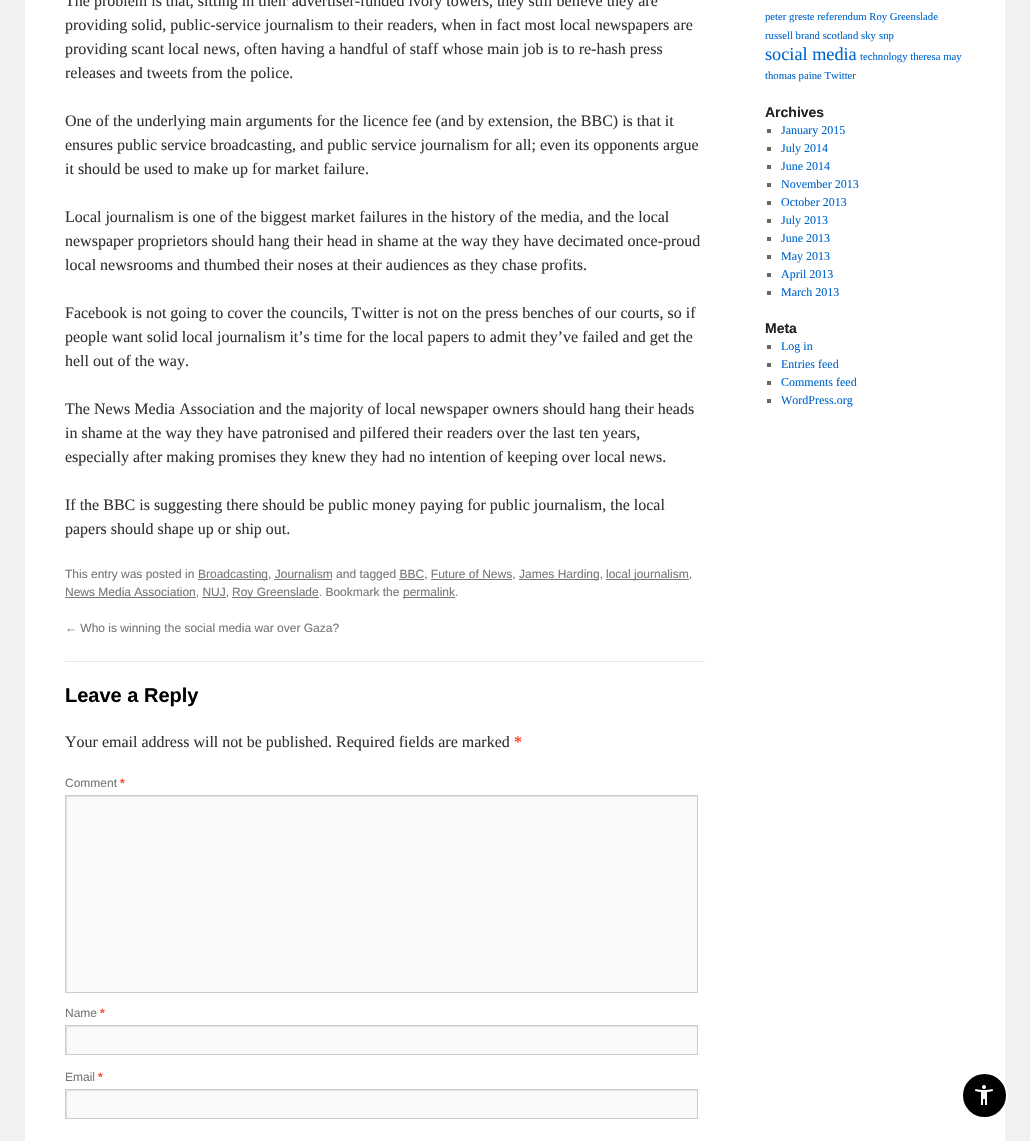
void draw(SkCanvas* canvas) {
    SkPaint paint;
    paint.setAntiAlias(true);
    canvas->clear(0xFFF1F1F1);
    paint.setColor(0xFFFFFFFF);
    canvas->drawRect(SkRect::MakeXYWH(25, 0, 980, 1141), paint);
    SkFont font1(fontMgr->matchFamilyStyle("Liberation Serif", SkFontStyle::Normal()), 16);
    font1.setSubpixel(true);
    paint.setColor(0xFF333333);
    canvas->drawString("The problem is that, sitting in their advertiser-funded ivory towers, they still believe they are", 65, 6, font1, paint);
    canvas->drawString("providing solid, public-service journalism to their readers, when in fact most local newspapers are", 65, 30, font1, paint);
    canvas->drawString("providing scant local news, often having a handful of staff whose main job is to re-hash press", 65, 54, font1, paint);
    canvas->drawString("releases and tweets from the police.", 65, 78, font1, paint);
    canvas->drawString("One of the underlying main arguments for the licence fee (and by extension, the BBC) is that it", 65, 126, font1, paint);
    canvas->drawString("ensures public service broadcasting, and public service journalism for all; even its opponents argue", 65, 150, font1, paint);
    canvas->drawString("it should be used to make up for market failure.", 65, 174, font1, paint);
    canvas->drawString("Local journalism is one of the biggest market failures in the history of the media, and the local", 65, 222, font1, paint);
    canvas->drawString("newspaper proprietors should hang their head in shame at the way they have decimated once-proud", 65, 246, font1, paint);
    canvas->drawString("local newsrooms and thumbed their noses at their audiences as they chase profits.", 65, 270, font1, paint);
    canvas->drawString("Facebook is not going to cover the councils, Twitter is not on the press benches of our courts, so if", 65, 318, font1, paint);
    canvas->drawString("people want solid local journalism it’s time for the local papers to admit they’ve failed and get the", 65, 342, font1, paint);
    canvas->drawString("hell out of the way.", 65, 366, font1, paint);
    canvas->drawString("The News Media Association and the majority of local newspaper owners should hang their heads", 65, 414, font1, paint);
    canvas->drawString("in shame at the way they have patronised and pilfered their readers over the last ten years,", 65, 438, font1, paint);
    canvas->drawString("especially after making promises they knew they had no intention of keeping over local news.", 65, 462, font1, paint);
    canvas->drawString("If the BBC is suggesting there should be public money paying for public journalism, the local", 65, 510, font1, paint);
    canvas->drawString("papers should shape up or ship out.", 65, 534, font1, paint);
    SkFont font2(fontMgr->matchFamilyStyle("Liberation Sans", SkFontStyle::Normal()), 12);
    font2.setSubpixel(true);
    paint.setColor(0xFF777777);
    canvas->drawString("This entry was posted in", 65, 578, font2, paint);
    canvas->drawRect(SkRect::MakeXYWH(198, 579, 70, 1), paint);
    canvas->drawString("Broadcasting, Journalism and tagged BBC, Future of News,", 198, 578, font2, paint);
    canvas->drawRect(SkRect::MakeXYWH(519, 579, 80, 1), paint);
    canvas->drawString("James Harding,", 519, 578, font2, paint);
    canvas->drawRect(SkRect::MakeXYWH(606, 579, 83, 1), paint);
    canvas->drawString("local journalism,", 606, 578, font2, paint);
    canvas->drawRect(SkRect::MakeXYWH(274, 579, 58, 1), paint);
    canvas->drawRect(SkRect::MakeXYWH(399, 579, 25, 1), paint);
    canvas->drawRect(SkRect::MakeXYWH(431, 579, 81, 1), paint);
    canvas->drawRect(SkRect::MakeXYWH(65, 597, 131, 1), paint);
    canvas->drawString("News Media Association, NUJ,", 65, 596, font2, paint);
    canvas->drawRect(SkRect::MakeXYWH(232, 597, 87, 1), paint);
    canvas->drawString("Roy Greenslade. Bookmark the", 232, 596, font2, paint);
    canvas->drawRect(SkRect::MakeXYWH(403, 597, 52, 1), paint);
    canvas->drawString("permalink.", 403, 596, font2, paint);
    canvas->drawRect(SkRect::MakeXYWH(202, 597, 24, 1), paint);
    canvas->drawString("← Who is winning the social media war over Gaza?", 65, 632, font2, paint);
    paint.setColor(0xFFE7E7E7);
    canvas->drawRect(SkRect::MakeXYWH(65, 661, 640, 1), paint);
    SkFont font3(fontMgr->matchFamilyStyle("Liberation Sans", SkFontStyle::Bold()), 20);
    font3.setSubpixel(true);
    paint.setColor(0xFF000000);
    canvas->drawString("Leave a Reply", 65, 702, font3, paint);
    paint.setColor(0xFF333333);
    canvas->drawString("Your email address will not be published. Required fields are marked", 65, 747, font1, paint);
    SkFont font4(fontMgr->matchFamilyStyle("Liberation Serif", SkFontStyle::Bold()), 16);
    font4.setSubpixel(true);
    paint.setColor(0xFFFF4B33);
    canvas->drawString("*", 514, 747, font4, paint);
    paint.setColor(0xFF777777);
    canvas->drawString("Comment", 65, 787, font2, paint);
    SkFont font5(fontMgr->matchFamilyStyle("Liberation Sans", SkFontStyle::Bold()), 12);
    font5.setSubpixel(true);
    paint.setColor(0xFFFF4B33);
    canvas->drawString("*", 120, 787, font5, paint);
    paint.setColor(0xFFF9F9F9);
    canvas->drawRect(SkRect::MakeXYWH(67, 797, 630, 195), paint);
    canvas->save();
    canvas->clipRect(SkRect::MakeXYWH(66, 796, 631, 196));
    paint.setColor(0xFFE0E0E0);
    canvas->drawPath(SkPathBuilder(SkPathFillType::kEvenOdd).moveTo(-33, 697).lineTo(796, 697).lineTo(796, 1091).lineTo(-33, 1091).close().moveTo(67, 797).lineTo(698, 797).lineTo(698, 993).lineTo(67, 993).close().detach(), paint);
    canvas->restore();
    paint.setStyle(SkPaint::kStroke_Style);
    paint.setStrokeWidth(1);
    paint.setColor(0xFFCCCCCC);
    canvas->drawRect(SkRect::MakeXYWH(65.5f, 795.5f, 632, 197), paint);
    paint.setStyle(SkPaint::kFill_Style);
    paint.setColor(0xFF777777);
    canvas->drawString("Name", 65, 1017, font2, paint);
    paint.setColor(0xFFFF4B33);
    canvas->drawString("*", 100, 1017, font5, paint);
    paint.setColor(0xFFF9F9F9);
    canvas->drawRect(SkRect::MakeXYWH(67, 1027, 630, 27), paint);
    canvas->save();
    canvas->clipRect(SkRect::MakeXYWH(66, 1026, 631, 28));
    paint.setColor(0xFFE0E0E0);
    canvas->drawPath(SkPathBuilder(SkPathFillType::kEvenOdd).moveTo(-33, 927).lineTo(796, 927).lineTo(796, 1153).lineTo(-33, 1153).close().moveTo(67, 1027).lineTo(698, 1027).lineTo(698, 1055).lineTo(67, 1055).close().detach(), paint);
    canvas->restore();
    paint.setStyle(SkPaint::kStroke_Style);
    paint.setColor(0xFFCCCCCC);
    canvas->drawRect(SkRect::MakeXYWH(65.5f, 1025.5f, 632, 29), paint);
    paint.setStyle(SkPaint::kFill_Style);
    paint.setColor(0xFF777777);
    canvas->drawString("Email", 65, 1081, font2, paint);
    paint.setColor(0xFFFF4B33);
    canvas->drawString("*", 98, 1081, font5, paint);
    paint.setColor(0xFFF9F9F9);
    canvas->drawRect(SkRect::MakeXYWH(67, 1091, 630, 27), paint);
    canvas->save();
    canvas->clipRect(SkRect::MakeXYWH(66, 1090, 631, 28));
    paint.setColor(0xFFE0E0E0);
    canvas->drawPath(SkPathBuilder(SkPathFillType::kEvenOdd).moveTo(-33, 991).lineTo(796, 991).lineTo(796, 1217).lineTo(-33, 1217).close().moveTo(67, 1091).lineTo(698, 1091).lineTo(698, 1119).lineTo(67, 1119).close().detach(), paint);
    canvas->restore();
    paint.setStyle(SkPaint::kStroke_Style);
    paint.setColor(0xFFCCCCCC);
    canvas->drawRect(SkRect::MakeXYWH(65.5f, 1089.5f, 632, 29), paint);
    SkFont font6(fontMgr->matchFamilyStyle("Liberation Serif", SkFontStyle::Normal()), 10.7f);
    font6.setSubpixel(true);
    paint.setStyle(SkPaint::kFill_Style);
    paint.setColor(0xFF0066CC);
    canvas->drawString("peter greste referendum Roy Greenslade", 765, 20, font6, paint);
    canvas->drawString("russell brand scotland", 765, 39, font6, paint);
    canvas->drawString("sky", 861, 39, font6, paint);
    canvas->drawString("snp", 879, 39, font6, paint);
    SkFont font7(fontMgr->matchFamilyStyle("Liberation Serif", SkFontStyle::Normal()), 18.25f);
    font7.setSubpixel(true);
    canvas->drawString("social media", 765, 60, font7, paint);
    canvas->drawString("technology theresa may", 860, 60, font6, paint);
    canvas->drawString("thomas paine Twitter", 765, 79, font6, paint);
    SkFont font8(fontMgr->matchFamilyStyle("Liberation Sans", SkFontStyle::Bold()), 14);
    font8.setSubpixel(true);
    paint.setColor(0xFF222222);
    canvas->drawString("Archives", 765, 117, font8, paint);
    paint.setColor(0xFF666666);
    canvas->drawRect(SkRect::MakeXYWH(767, 129, 4, 4), paint);
    SkFont font9(fontMgr->matchFamilyStyle("Liberation Serif", SkFontStyle::Normal()), 12);
    font9.setSubpixel(true);
    paint.setColor(0xFF0066CC);
    canvas->drawString("January 2015", 781, 134, font9, paint);
    paint.setColor(0xFF666666);
    canvas->drawRect(SkRect::MakeXYWH(767, 147, 4, 4), paint);
    paint.setColor(0xFF0066CC);
    canvas->drawString("July 2014", 781, 152, font9, paint);
    paint.setColor(0xFF666666);
    canvas->drawRect(SkRect::MakeXYWH(767, 165, 4, 4), paint);
    paint.setColor(0xFF0066CC);
    canvas->drawString("June 2014", 781, 170, font9, paint);
    paint.setColor(0xFF666666);
    canvas->drawRect(SkRect::MakeXYWH(767, 183, 4, 4), paint);
    paint.setColor(0xFF0066CC);
    canvas->drawString("November 2013", 781, 188, font9, paint);
    paint.setColor(0xFF666666);
    canvas->drawRect(SkRect::MakeXYWH(767, 201, 4, 4), paint);
    paint.setColor(0xFF0066CC);
    canvas->drawString("October 2013", 781, 206, font9, paint);
    paint.setColor(0xFF666666);
    canvas->drawRect(SkRect::MakeXYWH(767, 219, 4, 4), paint);
    paint.setColor(0xFF0066CC);
    canvas->drawString("July 2013", 781, 224, font9, paint);
    paint.setColor(0xFF666666);
    canvas->drawRect(SkRect::MakeXYWH(767, 237, 4, 4), paint);
    paint.setColor(0xFF0066CC);
    canvas->drawString("June 2013", 781, 242, font9, paint);
    paint.setColor(0xFF666666);
    canvas->drawRect(SkRect::MakeXYWH(767, 255, 4, 4), paint);
    paint.setColor(0xFF0066CC);
    canvas->drawString("May 2013", 781, 260, font9, paint);
    paint.setColor(0xFF666666);
    canvas->drawRect(SkRect::MakeXYWH(767, 273, 4, 4), paint);
    paint.setColor(0xFF0066CC);
    canvas->drawString("April 2013", 781, 278, font9, paint);
    paint.setColor(0xFF666666);
    canvas->drawRect(SkRect::MakeXYWH(767, 291, 4, 4), paint);
    paint.setColor(0xFF0066CC);
    canvas->drawString("March 2013", 781, 296, font9, paint);
    paint.setColor(0xFF222222);
    canvas->drawString("Meta", 765, 333, font8, paint);
    paint.setColor(0xFF666666);
    canvas->drawRect(SkRect::MakeXYWH(767, 345, 4, 4), paint);
    paint.setColor(0xFF0066CC);
    canvas->drawString("Log in", 781, 350, font9, paint);
    paint.setColor(0xFF666666);
    canvas->drawRect(SkRect::MakeXYWH(767, 363, 4, 4), paint);
    paint.setColor(0xFF0066CC);
    canvas->drawString("Entries feed", 781, 368, font9, paint);
    paint.setColor(0xFF666666);
    canvas->drawRect(SkRect::MakeXYWH(767, 381, 4, 4), paint);
    paint.setColor(0xFF0066CC);
    canvas->drawString("Comments feed", 781, 386, font9, paint);
    paint.setColor(0xFF666666);
    canvas->drawRect(SkRect::MakeXYWH(767, 399, 4, 4), paint);
    paint.setColor(0xFF0066CC);
    canvas->drawString("WordPress.org", 781, 404, font9, paint);
    paint.setColor(0xFF000000);
    canvas->drawCircle(984.5f, 1095.5f, 22.5f, paint);
    paint.setStyle(SkPaint::kStroke_Style);
    paint.setStrokeWidth(2);
    paint.setColor(0xFFFFFFFF);
    canvas->drawCircle(984.5f, 1095.5f, 22.5f, paint);
    canvas->drawImageRect(SkImages::DeferredFromEncodedData(SkData::MakeFromFileName("img1.png")), SkRect::MakeXYWH(975, 1085, 18, 20), SkSamplingOptions());
}
